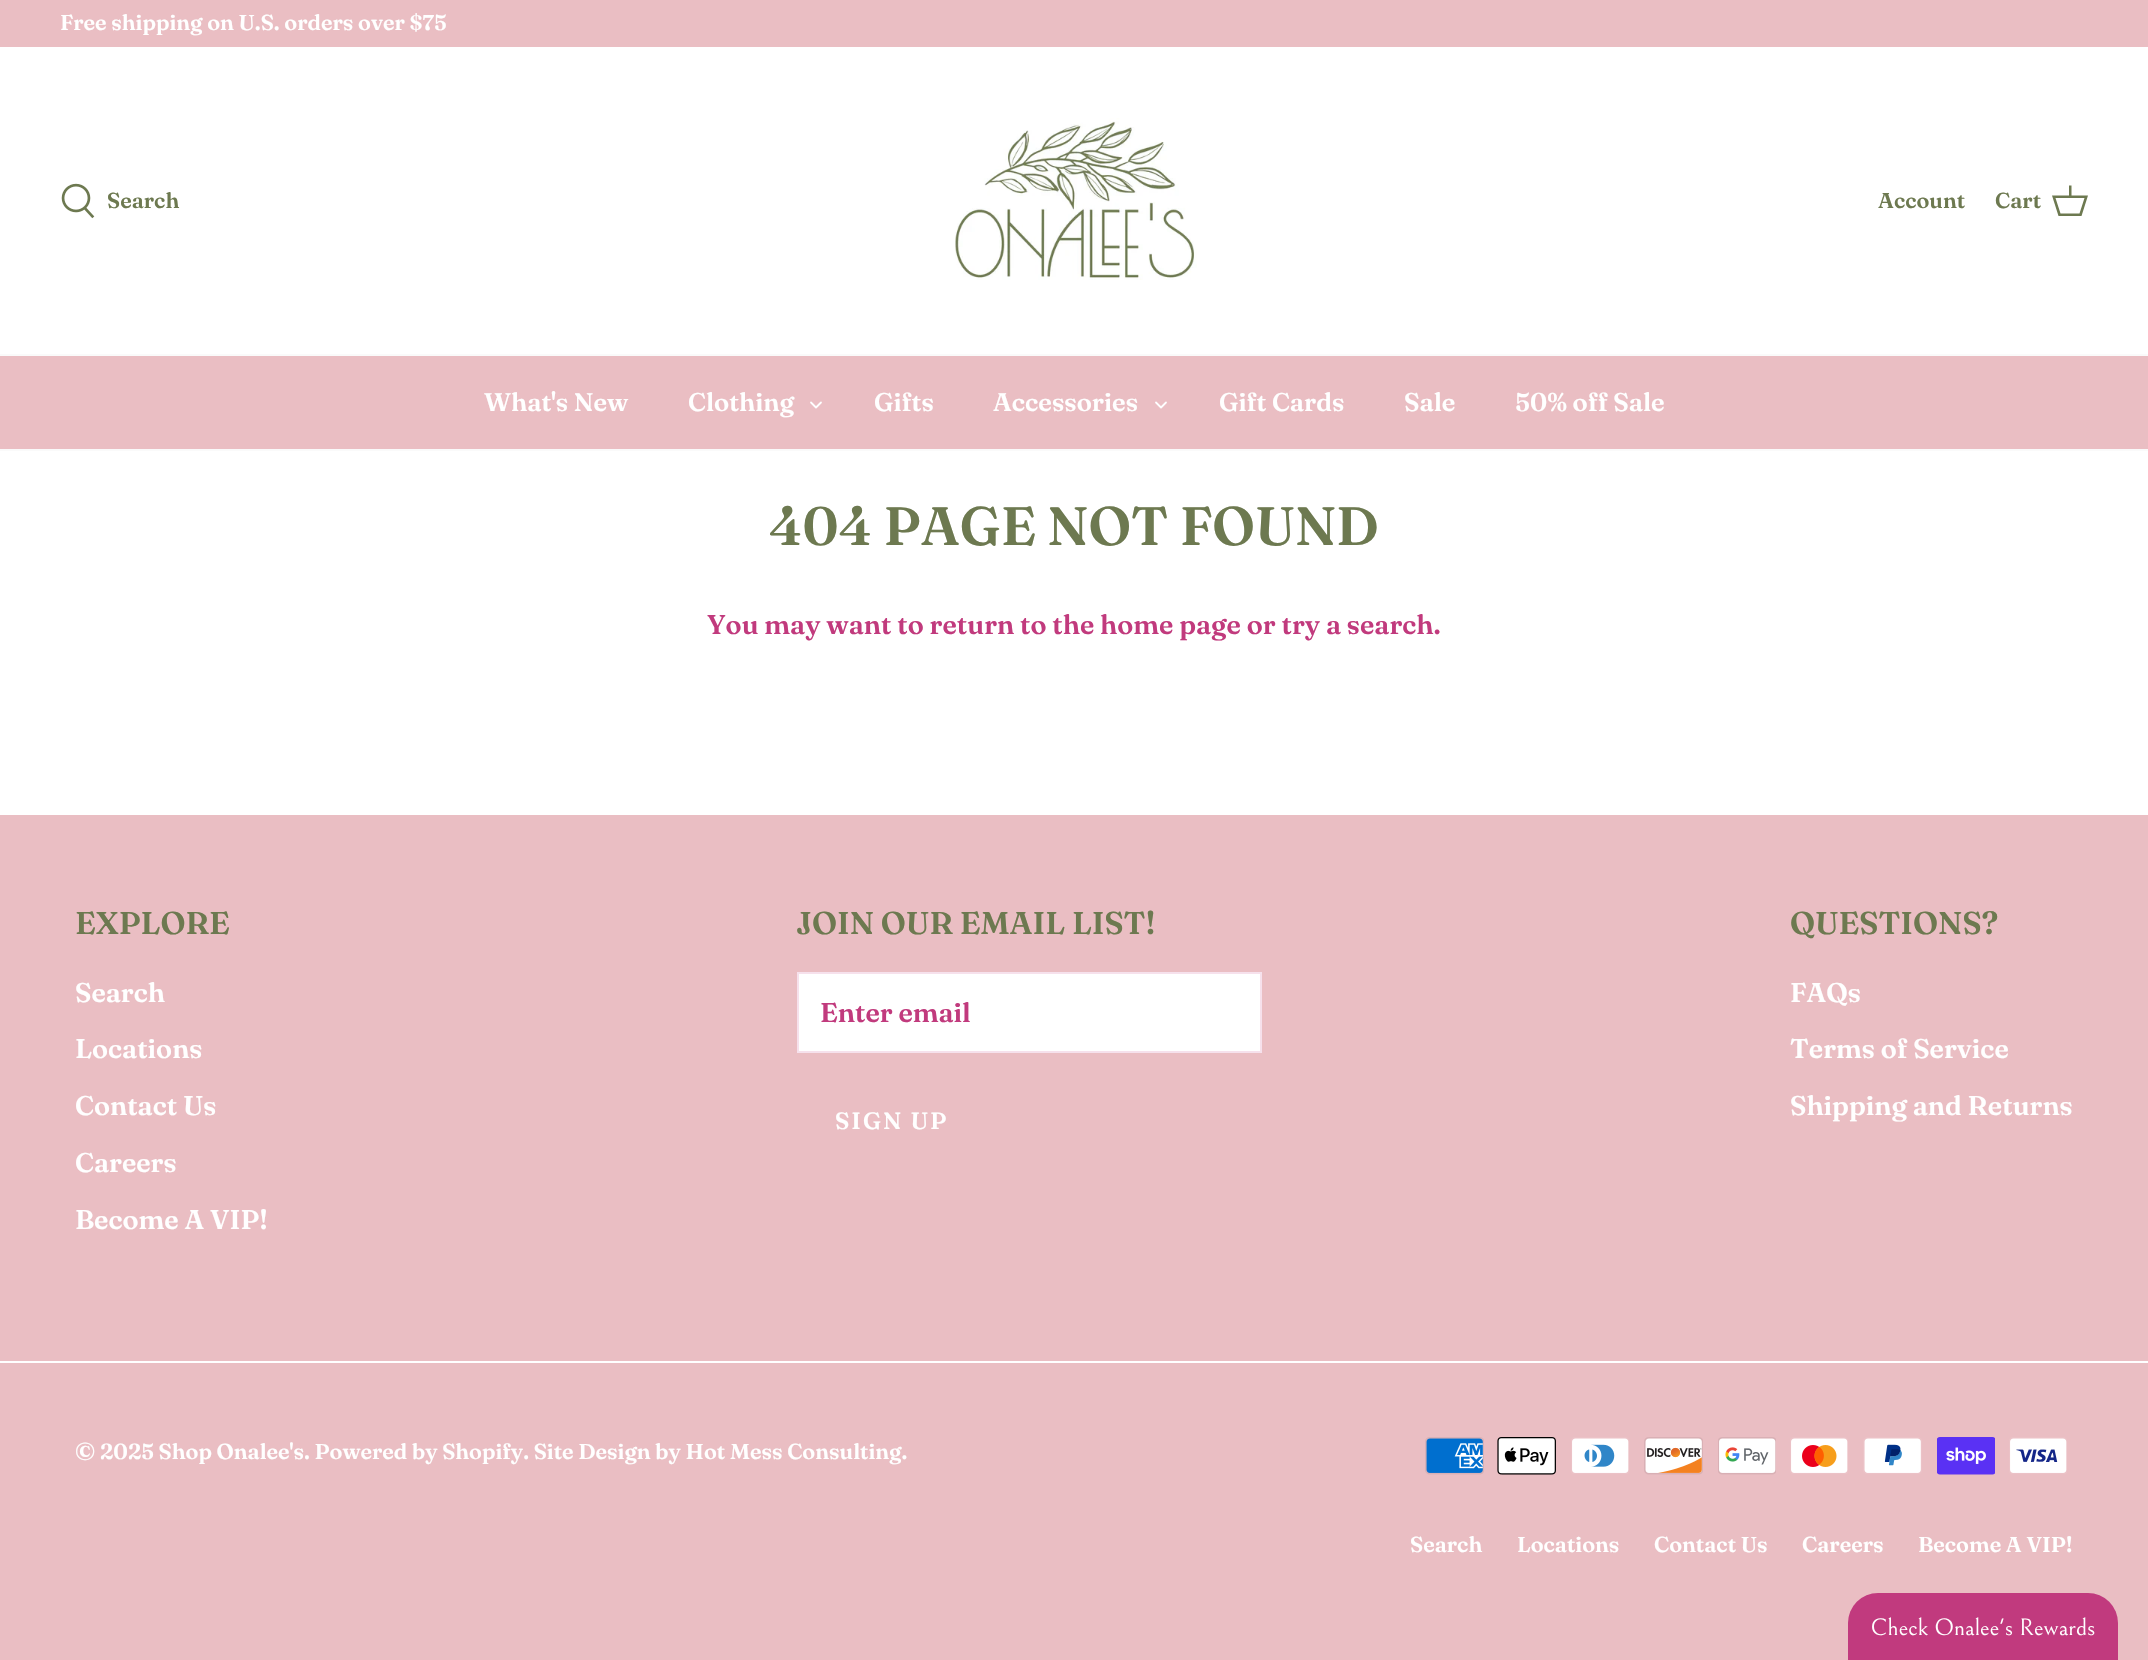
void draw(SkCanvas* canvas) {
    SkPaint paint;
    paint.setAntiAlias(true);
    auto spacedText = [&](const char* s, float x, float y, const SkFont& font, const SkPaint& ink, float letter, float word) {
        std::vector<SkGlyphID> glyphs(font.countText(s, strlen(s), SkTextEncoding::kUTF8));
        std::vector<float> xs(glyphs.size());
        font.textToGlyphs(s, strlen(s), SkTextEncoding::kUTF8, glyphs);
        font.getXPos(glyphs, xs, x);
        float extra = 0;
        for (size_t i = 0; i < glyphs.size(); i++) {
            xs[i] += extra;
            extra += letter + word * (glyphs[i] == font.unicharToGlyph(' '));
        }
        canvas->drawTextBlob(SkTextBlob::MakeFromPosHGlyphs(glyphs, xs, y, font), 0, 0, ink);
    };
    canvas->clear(0xFFFFFFFF);
    paint.setColor(0xFFEABEC3);
    canvas->drawRect(SkRect::MakeXYWH(0, 0, 2148, 47), paint);
    SkFont font1(fontMgr->matchFamilyStyle("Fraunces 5", SkFontStyle(600, SkFontStyle::kNormal_Width, SkFontStyle::kUpright_Slant)), 21.6f);
    font1.setSubpixel(true);
    paint.setColor(0xFFFFFFFF);
    canvas->drawString("Free shipping on U.S. orders over $75", 60, 30, font1, paint);
    paint.setColor(0xFFFAFAFA);
    canvas->drawRect(SkRect::MakeXYWH(0, 354, 2148, 2), paint);
    canvas->drawImageRect(SkImages::DeferredFromEncodedData(SkData::MakeFromFileName("img1.png")), SkRect::MakeXYWH(61, 183, 34, 36), SkSamplingOptions());
    paint.setColor(0xFF6D7950);
    canvas->drawString("Search", 107, 208, font1, paint);
    canvas->drawImageRect(SkImages::DeferredFromEncodedData(SkData::MakeFromFileName("img2.png")), SkRect::MakeXYWH(955, 118, 242, 162), SkSamplingOptions());
    canvas->drawString("Account", 1878, 208, font1, paint);
    canvas->drawString("Cart", 1995, 208, font1, paint);
    canvas->drawPath(SkPathBuilder().moveTo(2069, 195.5f).lineTo(2069, 185.5f).lineTo(2071.5f, 185.5f).lineTo(2071.5f, 195.5f).lineTo(2088, 195.5f).lineTo(2081.5f, 216).lineTo(2058.5f, 216).lineTo(2052, 195.5f).close().moveTo(2055.5f, 198).lineTo(2060.5f, 213.5f).lineTo(2079.5f, 213.5f).lineTo(2084.5f, 198).close().detach(), paint);
    paint.setColor(0xFFFAFAFA);
    canvas->drawRect(SkRect::MakeXYWH(0, 449, 2148, 2), paint);
    paint.setColor(0xFFEABEC3);
    canvas->drawRect(SkRect::MakeXYWH(0, 356, 2148, 93), paint);
    SkFont font2(fontMgr->matchFamilyStyle("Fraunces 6", SkFontStyle(600, SkFontStyle::kNormal_Width, SkFontStyle::kUpright_Slant)), 25.5f);
    font2.setSubpixel(true);
    paint.setColor(0xFFFFFFFF);
    canvas->drawString("What's New", 484, 411, font2, paint);
    canvas->drawString("Clothing", 688, 411, font2, paint);
    paint.setStyle(SkPaint::kStroke_Style);
    paint.setStrokeWidth(1.8f);
    paint.setStrokeCap(SkPaint::kRound_Cap);
    paint.setStrokeJoin(SkPaint::kRound_Join);
    canvas->drawPath(SkPathBuilder().moveTo(811, 402.5f).lineTo(816, 407.5f).lineTo(821, 402.5f).detach(), paint);
    paint.setStyle(SkPaint::kFill_Style);
    canvas->drawString("Gifts", 874, 411, font2, paint);
    canvas->drawString("Accessories", 993, 411, font2, paint);
    paint.setStyle(SkPaint::kStroke_Style);
    canvas->drawPath(SkPathBuilder().moveTo(1156, 402.5f).lineTo(1161, 407.5f).lineTo(1166, 402.5f).detach(), paint);
    paint.setStyle(SkPaint::kFill_Style);
    canvas->drawString("Gift Cards", 1219, 411, font2, paint);
    canvas->drawString("Sale", 1404, 411, font2, paint);
    canvas->drawString("50% off Sale", 1515, 411, font2, paint);
    SkFont font3(fontMgr->matchFamilyStyle("Fraunces", SkFontStyle(600, SkFontStyle::kNormal_Width, SkFontStyle::kUpright_Slant)), 54);
    font3.setSubpixel(true);
    paint.setColor(0xFF6D7950);
    canvas->drawString("404 PAGE NOT FOUND", 769, 545, font3, paint);
    SkFont font4(fontMgr->matchFamilyStyle("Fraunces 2", SkFontStyle(600, SkFontStyle::kNormal_Width, SkFontStyle::kUpright_Slant)), 27);
    font4.setSubpixel(true);
    paint.setColor(0xFFC13A7D);
    canvas->drawString("You may want to return to the home page or try a search.", 707, 634, font4, paint);
    paint.setColor(0xFFEABEC3);
    canvas->drawRect(SkRect::MakeXYWH(0, 815, 2148, 845), paint);
    SkFont font5(fontMgr->matchFamilyStyle("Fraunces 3", SkFontStyle(600, SkFontStyle::kNormal_Width, SkFontStyle::kUpright_Slant)), 31.5f);
    font5.setSubpixel(true);
    paint.setColor(0xFF6D7950);
    canvas->drawString("EXPLORE", 75, 934, font5, paint);
    paint.setColor(0xFFFFFFFF);
    canvas->drawString("Search", 75, 1002, font4, paint);
    canvas->drawString("Locations", 75, 1058, font4, paint);
    canvas->drawString("Contact Us", 75, 1115, font4, paint);
    canvas->drawString("Careers", 75, 1172, font4, paint);
    canvas->drawString("Become A VIP!", 75, 1229, font4, paint);
    paint.setColor(0xFF6D7950);
    canvas->drawString("JOIN OUR EMAIL LIST!", 796, 934, font5, paint);
    paint.setColor(0xFFFFFFFF);
    canvas->drawRect(SkRect::MakeXYWH(798, 973, 463, 79), paint);
    paint.setStyle(SkPaint::kStroke_Style);
    paint.setStrokeWidth(2);
    paint.setStrokeCap(SkPaint::kButt_Cap);
    paint.setStrokeJoin(SkPaint::kMiter_Join);
    paint.setColor(0xFFF6E1EC);
    canvas->drawRect(SkRect::MakeXYWH(798, 973, 463, 79), paint);
    paint.setStyle(SkPaint::kFill_Style);
    paint.setColor(0xFFC13A7D);
    canvas->drawString("Enter email", 820, 1022, font4, paint);
    SkFont font6(fontMgr->matchFamilyStyle("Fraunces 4", SkFontStyle(600, SkFontStyle::kNormal_Width, SkFontStyle::kUpright_Slant)), 23.5f);
    font6.setSubpixel(true);
    paint.setColor(0xFFFFFFFF);
    spacedText("SIGN UP", 835, 1129, font6, paint, 2, 0);
    paint.setColor(0xFF6D7950);
    canvas->drawString("QUESTIONS?", 1790, 934, font5, paint);
    paint.setColor(0xFFFFFFFF);
    canvas->drawString("FAQs", 1790, 1002, font4, paint);
    canvas->drawString("Terms of Service", 1790, 1058, font4, paint);
    canvas->drawString("Shipping and Returns", 1790, 1115, font4, paint);
    canvas->drawRect(SkRect::MakeXYWH(0, 1361, 2148, 2), paint);
    canvas->drawString("© 2025 Shop Onalee's. Powered by Shopify. Site Design by Hot Mess Consulting.", 75, 1459, font1, paint);
    canvas->drawImageRect(SkImages::DeferredFromEncodedData(SkData::MakeFromFileName("img3.png")), SkRect::MakeXYWH(1425, 1437, 59, 38), SkSamplingOptions());
    canvas->drawImageRect(SkImages::DeferredFromEncodedData(SkData::MakeFromFileName("img4.png")), SkRect::MakeXYWH(1497, 1437, 59, 38), SkSamplingOptions());
    canvas->drawImageRect(SkImages::DeferredFromEncodedData(SkData::MakeFromFileName("img5.png")), SkRect::MakeXYWH(1571, 1437, 58, 37), SkSamplingOptions());
    canvas->drawImageRect(SkImages::DeferredFromEncodedData(SkData::MakeFromFileName("img6.png")), SkRect::MakeXYWH(1644, 1437, 59, 38), SkSamplingOptions());
    canvas->drawImageRect(SkImages::DeferredFromEncodedData(SkData::MakeFromFileName("img7.png")), SkRect::MakeXYWH(1718, 1437, 58, 38), SkSamplingOptions());
    canvas->drawImageRect(SkImages::DeferredFromEncodedData(SkData::MakeFromFileName("img8.png")), SkRect::MakeXYWH(1790, 1437, 58, 37), SkSamplingOptions());
    canvas->drawImageRect(SkImages::DeferredFromEncodedData(SkData::MakeFromFileName("img9.png")), SkRect::MakeXYWH(1863, 1437, 59, 37), SkSamplingOptions());
    canvas->drawImageRect(SkImages::DeferredFromEncodedData(SkData::MakeFromFileName("img10.png")), SkRect::MakeXYWH(1937, 1437, 58, 38), SkSamplingOptions());
    canvas->drawImageRect(SkImages::DeferredFromEncodedData(SkData::MakeFromFileName("img11.png")), SkRect::MakeXYWH(2009, 1437, 58, 37), SkSamplingOptions());
    canvas->drawString("Search", 1410, 1552, font1, paint);
    canvas->drawString("Locations", 1517, 1552, font1, paint);
    canvas->drawString("Contact Us", 1654, 1552, font1, paint);
    canvas->drawString("Careers", 1802, 1552, font1, paint);
    canvas->drawString("Become A VIP!", 1918, 1552, font1, paint);
    canvas->drawImageRect(SkImages::DeferredFromEncodedData(SkData::MakeFromFileName("img12.png")), SkRect::MakeXYWH(1848, 1593, 270, 67), SkSamplingOptions());
}
